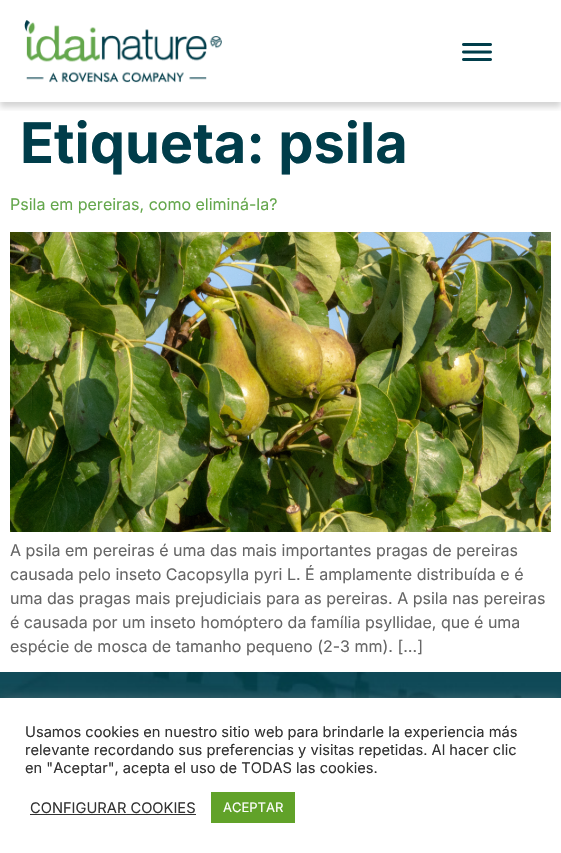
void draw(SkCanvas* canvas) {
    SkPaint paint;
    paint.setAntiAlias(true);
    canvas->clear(0xFFFFFFFF);
    canvas->save();
    canvas->clipRect(SkRect::MakeXYWH(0, 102, 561, 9));
    paint.setColor(0x2B000000);
    paint.setMaskFilter(SkMaskFilter::MakeBlur(kNormal_SkBlurStyle, 3));
    canvas->drawRect(SkRect::MakeXYWH(0, 5, 561, 102), paint);
    paint.setMaskFilter(nullptr);
    canvas->restore();
    canvas->drawImageRect(SkImages::DeferredFromEncodedData(SkData::MakeFromFileName("img1.png")), SkRect::MakeXYWH(24, 20, 198, 63), SkSamplingOptions());
    canvas->drawImageRect(SkImages::DeferredFromEncodedData(SkData::MakeFromFileName("img2.png")), SkRect::MakeXYWH(462, 43, 30, 18), SkSamplingOptions());
    SkFont font1(fontMgr->matchFamilyStyle("Inter", SkFontStyle::Bold()), 56);
    font1.setSubpixel(true);
    paint.setColor(0xFF003D4A);
    canvas->drawString("Etiqueta: psila", 20, 163, font1, paint);
    SkFont font2(fontMgr->matchFamilyStyle("Inter", SkFontStyle::Normal()), 16);
    font2.setSubpixel(true);
    paint.setColor(0xFF64A74C);
    canvas->drawString("Psila em pereiras, como eliminá-la?", 10, 210, font2, paint);
    canvas->drawImageRect(SkImages::DeferredFromEncodedData(SkData::MakeFromFileName("img3.png")), SkRect::MakeXYWH(10, 232, 541, 300), SkSamplingOptions());
    paint.setColor(0xFF666666);
    canvas->drawString("A psila em pereiras é uma das mais importantes pragas de pereiras", 10, 556, font2, paint);
    canvas->drawString("causada pelo inseto Cacopsylla pyri L. É amplamente distribuída e é", 10, 580, font2, paint);
    canvas->drawString("uma das pragas mais prejudiciais para as pereiras. A psila nas pereiras", 10, 604, font2, paint);
    canvas->drawString("é causada por um inseto homóptero da família psyllidae, que é uma", 10, 628, font2, paint);
    canvas->drawString("espécie de mosca de tamanho pequeno (2-3 mm). […]", 10, 652, font2, paint);
    canvas->drawImageRect(SkImages::DeferredFromEncodedData(SkData::MakeFromFileName("img4.png")), SkRect::MakeXYWH(0, 672, 561, 26), SkSamplingOptions());
    paint.setColor(0x4DACABAB);
    paint.setMaskFilter(SkMaskFilter::MakeBlur(kNormal_SkBlurStyle, 5));
    canvas->drawRect(SkRect::MakeXYWH(0, 697, 561, 155), paint);
    paint.setMaskFilter(nullptr);
    paint.setColor(0xFFFFFFFF);
    canvas->drawRect(SkRect::MakeXYWH(0, 698, 561, 155), paint);
    SkFont font3(fontMgr->matchFamilyStyle("Inter", SkFontStyle::Normal()), 14.65f);
    font3.setSubpixel(true);
    paint.setColor(0xFF333333);
    canvas->drawString("Usamos cookies en nuestro sitio web para brindarle la experiencia más", 25, 737, font3, paint);
    canvas->drawString("relevante recordando sus preferencias y visitas repetidas. Al hacer clic", 25, 755, font3, paint);
    canvas->drawString("en \"Aceptar\", acepta el uso de TODAS las cookies.", 25, 773, font3, paint);
    canvas->drawString("CONFIGURAR COOKIES", 30, 813, font3, paint);
    canvas->drawRect(SkRect::MakeXYWH(30, 814, 166, 1), paint);
    paint.setColor(0xFF61A229);
    canvas->drawRect(SkRect::MakeXYWH(211, 792, 84, 31), paint);
    SkFont font4(fontMgr->matchFamilyStyle("Inter", SkFontStyle::Normal()), 13);
    font4.setSubpixel(true);
    paint.setColor(0xFFFFFFFF);
    canvas->drawString("ACEPTAR", 223, 812, font4, paint);
}
